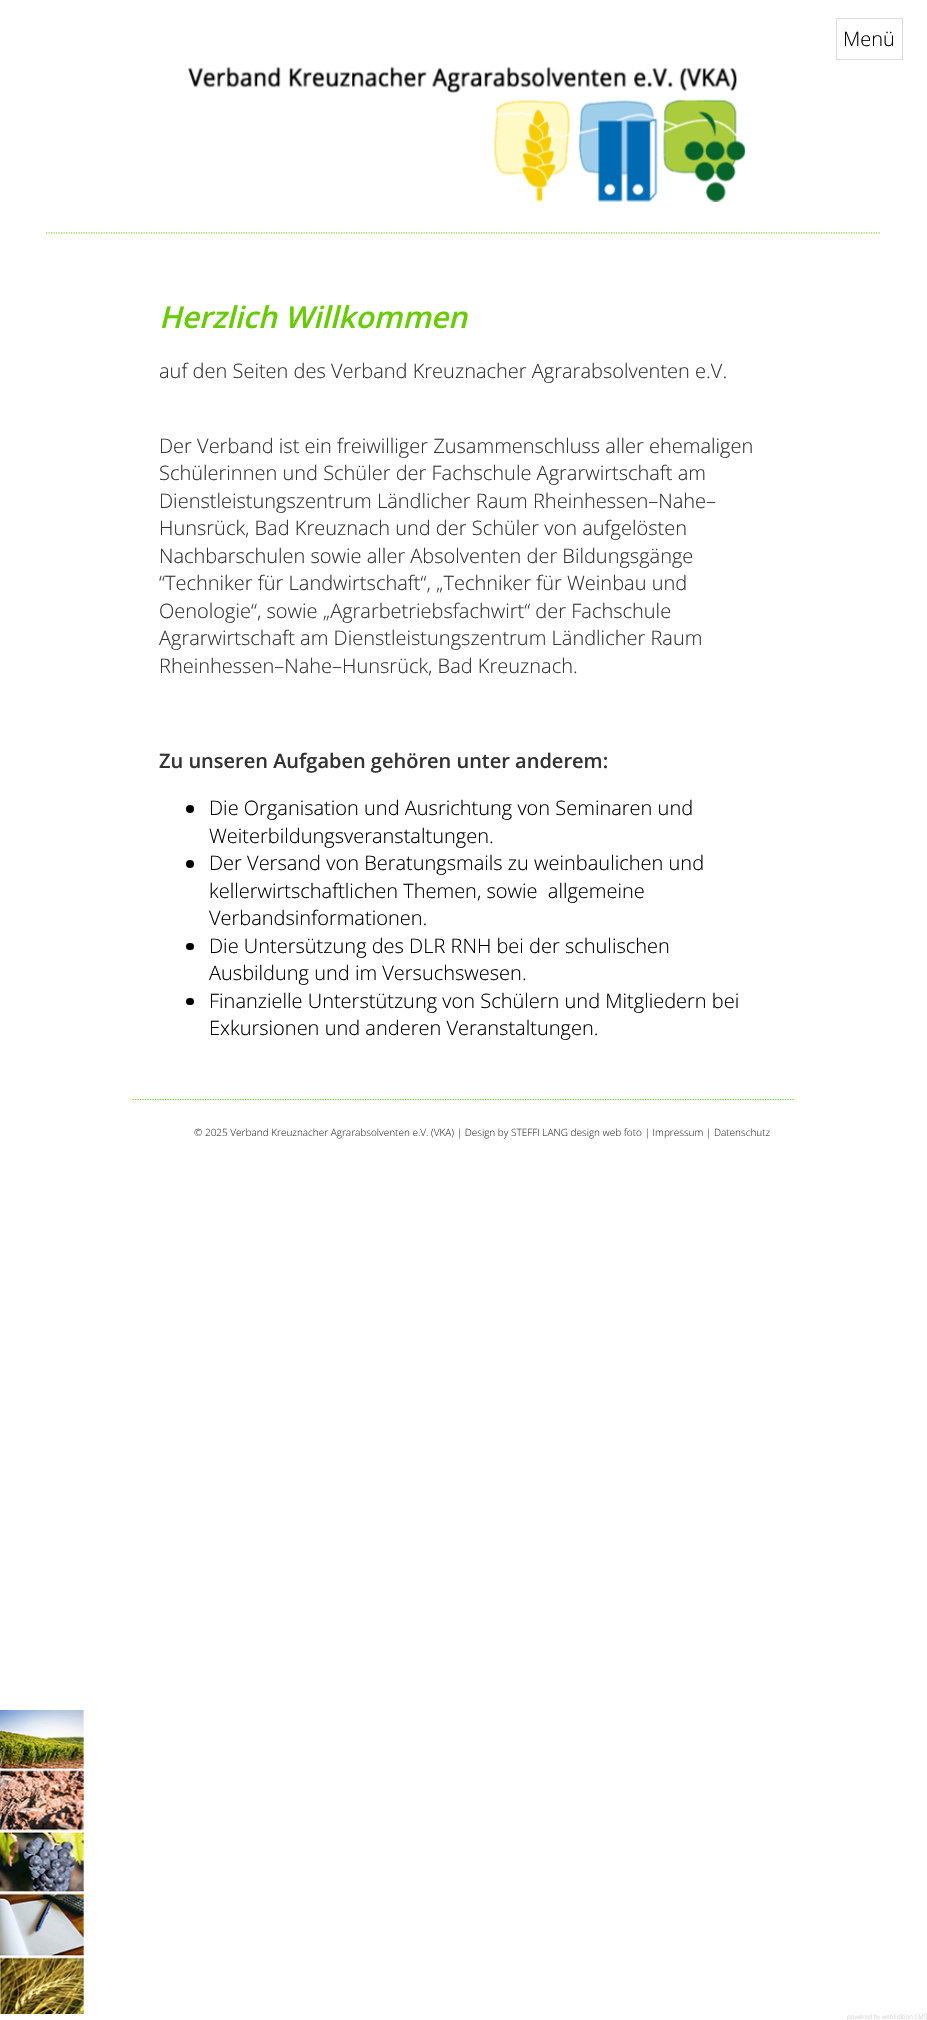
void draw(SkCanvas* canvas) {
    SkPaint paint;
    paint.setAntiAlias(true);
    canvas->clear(0xFFFFFFFF);
    paint.setStyle(SkPaint::kStroke_Style);
    paint.setStrokeWidth(1);
    paint.setColor(0xFFDDDDDD);
    canvas->drawRect(SkRect::MakeXYWH(836.5f, 18.5f, 66, 41), paint);
    SkFont font1(fontMgr->matchFamilyStyle("Open Sans", SkFontStyle(300, SkFontStyle::kNormal_Width, SkFontStyle::kUpright_Slant)), 20);
    font1.setSubpixel(true);
    paint.setStyle(SkPaint::kFill_Style);
    paint.setColor(0xFF000000);
    canvas->drawString("Menü", 843, 46, font1, paint);
    paint.setStyle(SkPaint::kStroke_Style);
    paint.setStrokeWidth(1.2f);
    paint.setColor(0xFF66CC00);
    paint.setPathEffect(SkDashPathEffect::Make({{1.25f, 1.25f}}, 0));
    canvas->drawPath(SkPathBuilder().moveTo(46, 233).lineTo(881, 233).detach(), paint);
    paint.setPathEffect(nullptr);
    canvas->drawImageRect(SkImages::DeferredFromEncodedData(SkData::MakeFromFileName("img1.png")), SkRect::MakeXYWH(188, 66, 557, 136), SkSamplingOptions());
    SkFont font2(fontMgr->matchFamilyStyle("Open Sans", SkFontStyle(600, SkFontStyle::kNormal_Width, SkFontStyle::kItalic_Slant)), 30);
    font2.setSubpixel(true);
    paint.setStyle(SkPaint::kFill_Style);
    canvas->drawString("Herzlich Willkommen", 159, 328, font2, paint);
    paint.setColor(0xFF333333);
    canvas->drawString("auf den Seiten des Verband Kreuznacher Agrarabsolventen e.V.", 159, 378, font1, paint);
    canvas->drawString("Der Verband ist ein freiwilliger Zusammenschluss aller ehemaligen", 159, 453, font1, paint);
    canvas->drawString("Schülerinnen und Schüler der Fachschule Agrarwirtschaft am", 159, 480, font1, paint);
    canvas->drawString("Dienstleistungszentrum Ländlicher Raum Rheinhessen–Nahe–", 159, 508, font1, paint);
    canvas->drawString("Hunsrück, Bad Kreuznach und der Schüler von aufgelösten", 159, 535, font1, paint);
    canvas->drawString("Nachbarschulen sowie aller Absolventen der Bildungsgänge", 159, 563, font1, paint);
    canvas->drawString("“Techniker für Landwirtschaft“, „Techniker für Weinbau und", 159, 590, font1, paint);
    canvas->drawString("Oenologie“, sowie „Agrarbetriebsfachwirt“ der Fachschule", 159, 618, font1, paint);
    canvas->drawString("Agrarwirtschaft am Dienstleistungszentrum Ländlicher Raum", 159, 645, font1, paint);
    canvas->drawString("Rheinhessen–Nahe–Hunsrück, Bad Kreuznach.", 159, 673, font1, paint);
    SkFont font3(fontMgr->matchFamilyStyle("Open Sans", SkFontStyle(600, SkFontStyle::kNormal_Width, SkFontStyle::kUpright_Slant)), 20);
    font3.setSubpixel(true);
    canvas->drawString("Zu unseren Aufgaben gehören unter anderem:", 159, 768, font3, paint);
    paint.setColor(0xFF000000);
    canvas->drawCircle(190, 809, 4, paint);
    canvas->drawString("Die Organisation und Ausrichtung von Seminaren und", 209, 815, font1, paint);
    canvas->drawString("Weiterbildungsveranstaltungen.", 209, 843, font1, paint);
    canvas->drawCircle(190, 864, 4, paint);
    canvas->drawString("Der Versand von Beratungsmails zu weinbaulichen und", 209, 870, font1, paint);
    canvas->drawString("kellerwirtschaftlichen Themen, sowie  allgemeine", 209, 898, font1, paint);
    canvas->drawString("Verbandsinformationen.", 209, 925, font1, paint);
    canvas->drawRoundRect(SkRect::MakeXYWH(186, 943, 8, 7), 3.5f, 3.5f, paint);
    canvas->drawString("Die Untersützung des DLR RNH bei der schulischen", 209, 953, font1, paint);
    canvas->drawString("Ausbildung und im Versuchswesen.", 209, 980, font1, paint);
    canvas->drawRoundRect(SkRect::MakeXYWH(186, 998, 8, 7), 3.5f, 3.5f, paint);
    canvas->drawString("Finanzielle Unterstützung von Schülern und Mitgliedern bei", 209, 1008, font1, paint);
    canvas->drawString("Exkursionen und anderen Veranstaltungen.", 209, 1035, font1, paint);
    paint.setStyle(SkPaint::kStroke_Style);
    paint.setColor(0xFF66CC00);
    paint.setPathEffect(SkDashPathEffect::Make({{1.25f, 1.25f}}, 0));
    canvas->drawPath(SkPathBuilder().moveTo(132.5f, 1099.5f).lineTo(795, 1099.5f).detach(), paint);
    paint.setPathEffect(nullptr);
    SkFont font4(fontMgr->matchFamilyStyle("Open Sans", SkFontStyle(300, SkFontStyle::kNormal_Width, SkFontStyle::kUpright_Slant)), 10);
    font4.setSubpixel(true);
    paint.setStyle(SkPaint::kFill_Style);
    paint.setColor(0xFF333333);
    canvas->drawString("© 2025 Verband Kreuznacher Agrarabsolventen e.V. (VKA) | Design by STEFFI LANG design web foto | Impressum | Datenschutz", 194, 1136, font4, paint);
    canvas->drawImageRect(SkImages::DeferredFromEncodedData(SkData::MakeFromFileName("img2.png")), SkRect::MakeXYWH(0, 1710, 84, 304), SkSamplingOptions());
    SkFont font5(fontMgr->matchFamilyStyle("Open Sans", SkFontStyle(300, SkFontStyle::kNormal_Width, SkFontStyle::kUpright_Slant)), 6.25f);
    font5.setSubpixel(true);
    paint.setColor(0xFFCCCCCC);
    canvas->drawString("powered by webEdition CMS", 847, 2019, font5, paint);
}
